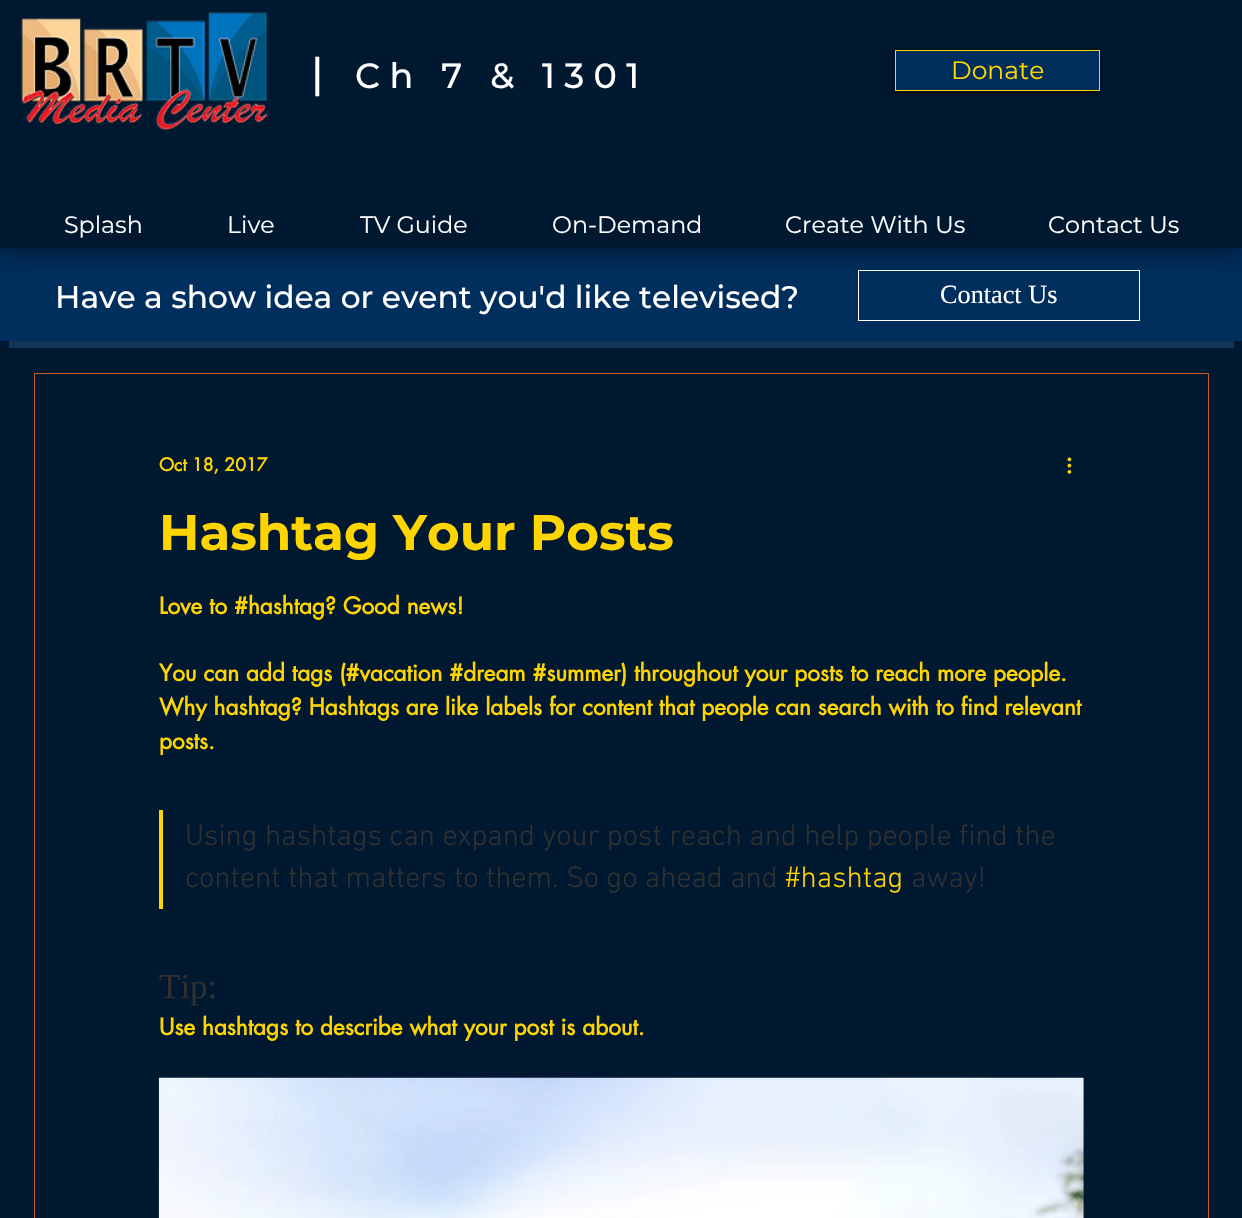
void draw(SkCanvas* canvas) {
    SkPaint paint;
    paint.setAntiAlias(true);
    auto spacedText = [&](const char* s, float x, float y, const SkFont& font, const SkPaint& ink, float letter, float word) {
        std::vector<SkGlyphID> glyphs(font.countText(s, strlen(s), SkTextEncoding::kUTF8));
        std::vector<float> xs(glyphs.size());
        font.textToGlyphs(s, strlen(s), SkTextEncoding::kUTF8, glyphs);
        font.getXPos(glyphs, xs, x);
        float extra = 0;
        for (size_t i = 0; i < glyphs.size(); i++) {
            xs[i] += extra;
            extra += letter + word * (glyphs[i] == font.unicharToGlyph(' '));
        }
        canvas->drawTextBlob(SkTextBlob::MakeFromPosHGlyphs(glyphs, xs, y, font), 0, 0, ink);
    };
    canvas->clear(0xFF001830);
    paint.setColor(0xFF002E5D);
    canvas->drawRect(SkRect::MakeXYWH(0, 248, 1242, 93), paint);
    paint.setStyle(SkPaint::kStroke_Style);
    paint.setStrokeWidth(1);
    paint.setColor(0xFFFFFFFF);
    canvas->drawRect(SkRect::MakeXYWH(858.5f, 270.5f, 281, 50), paint);
    canvas->save();
    canvas->clipPath(SkPathBuilder(SkPathFillType::kEvenOdd).moveTo(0, 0).lineTo(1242, 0).lineTo(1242, 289).lineTo(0, 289).close().moveTo(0, 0).lineTo(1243, 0).lineTo(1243, 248).lineTo(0, 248).close().detach(), true);
    paint.setStyle(SkPaint::kFill_Style);
    paint.setColor(0x99000000);
    paint.setMaskFilter(SkMaskFilter::MakeBlur(kNormal_SkBlurStyle, 13));
    canvas->drawRect(SkRect::MakeXYWH(0, 1, 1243, 248), paint);
    paint.setMaskFilter(nullptr);
    canvas->restore();
    paint.setColor(0x8F001830);
    canvas->drawRect(SkRect::MakeXYWH(3, 247, 1237, 1), paint);
    canvas->drawImageRect(SkImages::DeferredFromEncodedData(SkData::MakeFromFileName("img1.png")), SkRect::MakeXYWH(21, 12, 247, 118), SkSamplingOptions());
    SkFont font1(fontMgr->matchFamilyStyle("Montserrat", SkFontStyle(500, SkFontStyle::kNormal_Width, SkFontStyle::kUpright_Slant)), 42);
    font1.setSubpixel(true);
    paint.setColor(0xFFFFFFFF);
    spacedText("|", 311, 88, font1, paint, 9.25f, 0);
    SkFont font2(fontMgr->matchFamilyStyle("Montserrat", SkFontStyle(500, SkFontStyle::kNormal_Width, SkFontStyle::kUpright_Slant)), 35);
    font2.setSubpixel(true);
    spacedText("Ch 7 & 1301", 355, 88, font2, paint, 9.25f, 0);
    paint.setColor(0x99000000);
    paint.setMaskFilter(SkMaskFilter::MakeBlur(kNormal_SkBlurStyle, 2.5f));
    canvas->drawRect(SkRect::MakeXYWH(895, 51, 205, 42), paint);
    paint.setMaskFilter(nullptr);
    paint.setColor(0xFF002E5D);
    canvas->drawRect(SkRect::MakeXYWH(895.5f, 50.5f, 204, 40), paint);
    paint.setStyle(SkPaint::kStroke_Style);
    paint.setColor(0xFFFFD500);
    canvas->drawRect(SkRect::MakeXYWH(895.5f, 50.5f, 204, 40), paint);
    SkFont font3(fontMgr->matchFamilyStyle("Montserrat", SkFontStyle::Normal()), 25);
    font3.setSubpixel(true);
    paint.setStyle(SkPaint::kFill_Style);
    canvas->drawString("Donate", 951, 79, font3, paint);
    SkFont font4(fontMgr->matchFamilyStyle("Montserrat", SkFontStyle::Normal()), 23.75f);
    font4.setSubpixel(true);
    paint.setColor(0xFFFFFFFF);
    canvas->drawString("Splash", 64, 233, font4, paint);
    canvas->drawString("Live", 227, 233, font4, paint);
    canvas->drawString("TV Guide", 360, 233, font4, paint);
    canvas->drawString("On-Demand", 552, 233, font4, paint);
    canvas->drawString("Create With Us", 785, 233, font4, paint);
    canvas->drawString("Contact Us", 1048, 233, font4, paint);
    SkFont font5(fontMgr->matchFamilyStyle("Montserrat", SkFontStyle(500, SkFontStyle::kNormal_Width, SkFontStyle::kUpright_Slant)), 31.25f);
    font5.setSubpixel(true);
    canvas->drawString("Have a show idea or event you'd like televised?", 55, 308, font5, paint);
    SkFont font6(fontMgr->matchFamilyStyle("Liberation Serif", SkFontStyle::Normal()), 26.25f);
    font6.setSubpixel(true);
    canvas->drawString("Contact Us", 940, 303, font6, paint);
    paint.setColor(0xFF0F3659);
    canvas->drawRect(SkRect::MakeXYWH(9, 341, 1225, 7), paint);
    paint.setStyle(SkPaint::kStroke_Style);
    paint.setColor(0xFFBC6027);
    canvas->drawRect(SkRect::MakeXYWH(34.5f, 373.5f, 1174, 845), paint);
    SkFont font7(fontMgr->matchFamilyStyle("futura", SkFontStyle::Bold()), 17.5f);
    font7.setSubpixel(true);
    paint.setStyle(SkPaint::kFill_Style);
    paint.setColor(0xFFFFD500);
    canvas->drawString("Oct 18, 2017", 159, 471, font7, paint);
    canvas->drawImageRect(SkImages::DeferredFromEncodedData(SkData::MakeFromFileName("img2.png")), SkRect::MakeXYWH(1067, 457, 5, 17), SkSamplingOptions());
    SkFont font8(fontMgr->matchFamilyStyle("Montserrat", SkFontStyle::Bold()), 50);
    font8.setSubpixel(true);
    canvas->drawString("Hashtag Your Posts", 159, 550, font8, paint);
    SkFont font9(fontMgr->matchFamilyStyle("futura", SkFontStyle::Bold()), 22.5f);
    font9.setSubpixel(true);
    canvas->drawString("Love to #hashtag? Good news!", 159, 614, font9, paint);
    canvas->drawString("You can add tags (#vacation #dream #summer) throughout your posts to reach more people.", 159, 681, font9, paint);
    canvas->drawString("Why hashtag? Hashtags are like labels for content that people can search with to find relevant", 159, 715, font9, paint);
    canvas->drawString("posts.", 159, 749, font9, paint);
    canvas->drawRect(SkRect::MakeXYWH(159, 810, 4, 99), paint);
    SkFont font10(fontMgr->matchFamilyStyle("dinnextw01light", SkFontStyle(300, SkFontStyle::kNormal_Width, SkFontStyle::kUpright_Slant)), 30);
    font10.setSubpixel(true);
    paint.setColor(0xFF303030);
    canvas->drawString("Using hashtags can expand your post reach and help people find the", 185, 845, font10, paint);
    canvas->drawString("content that matters to them. So go ahead and", 185, 887, font10, paint);
    paint.setColor(0xFFFFD500);
    canvas->drawString("#hashtag", 785, 887, font10, paint);
    paint.setColor(0xFF303030);
    canvas->drawString("away!", 911, 887, font10, paint);
    SkFont font11(fontMgr->matchFamilyStyle("Liberation Serif", SkFontStyle::Normal()), 35);
    font11.setSubpixel(true);
    canvas->drawString("Tip:", 159, 998, font11, paint);
    paint.setColor(0xFFFFD500);
    canvas->drawString("Use hashtags to describe what your post is about.", 159, 1035, font9, paint);
    canvas->drawImageRect(SkImages::DeferredFromEncodedData(SkData::MakeFromFileName("img3.png")), SkRect::MakeXYWH(158, 1077, 926, 141), SkSamplingOptions());
}
